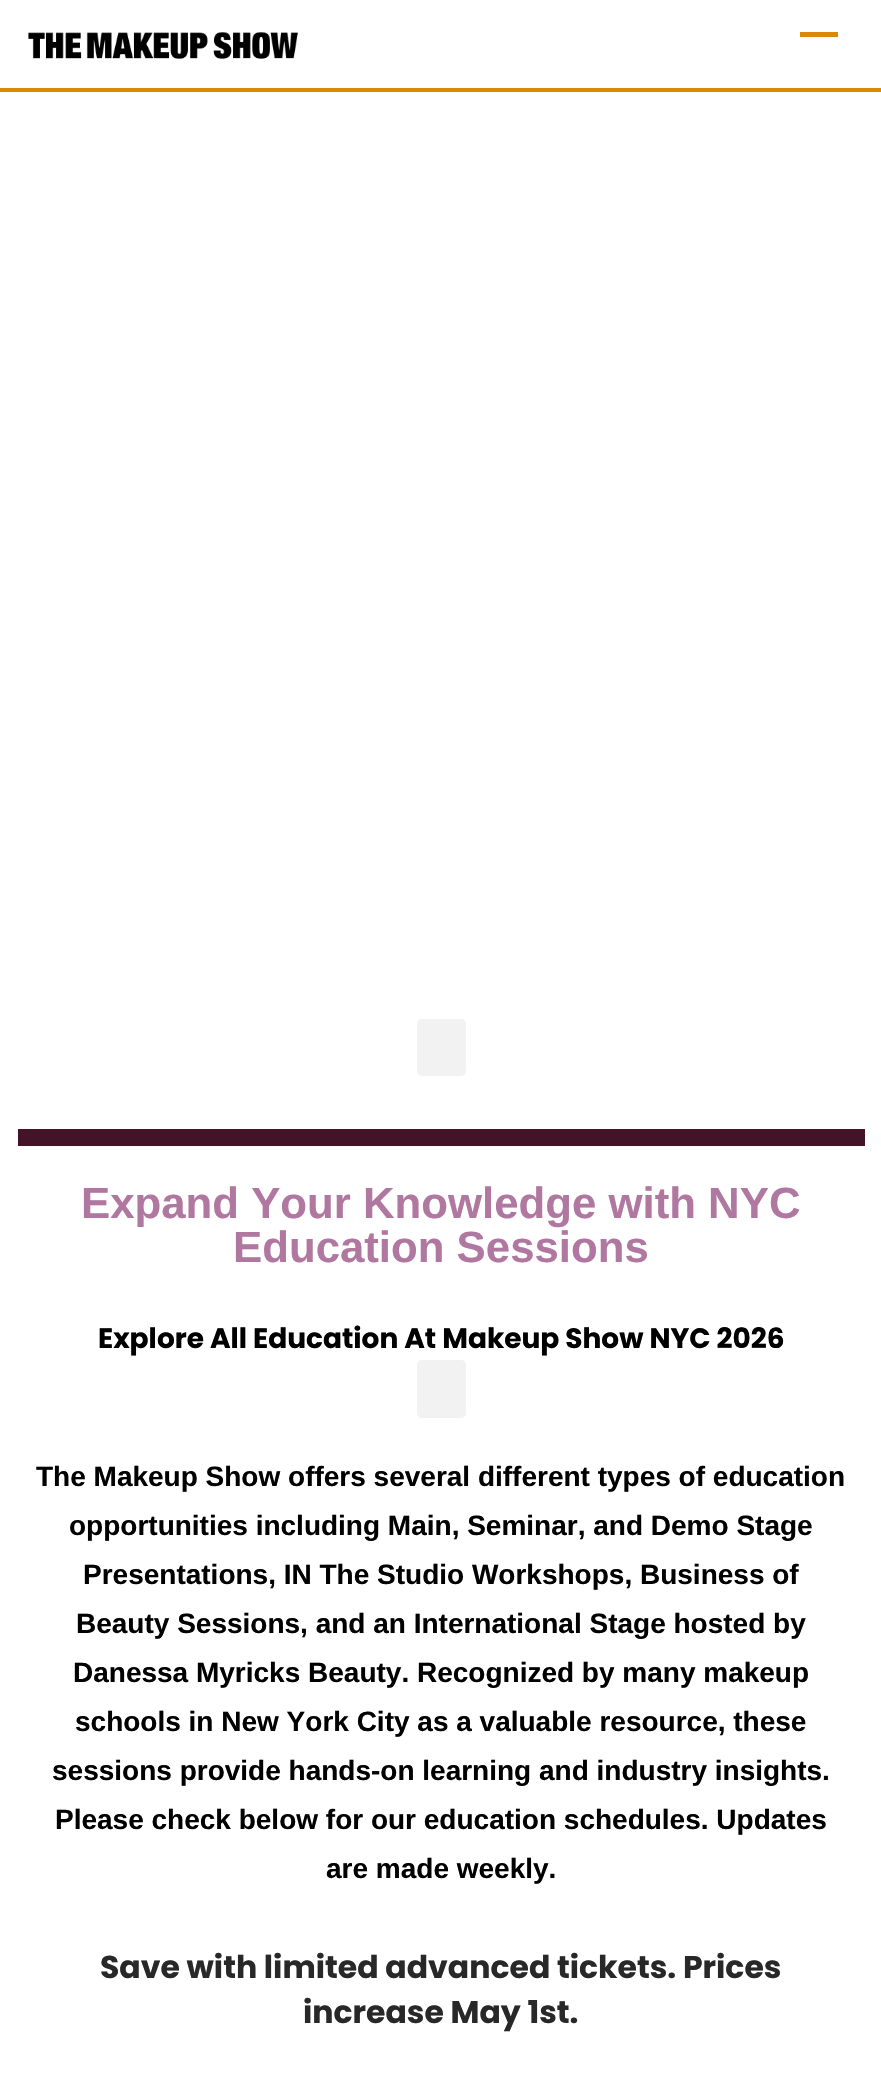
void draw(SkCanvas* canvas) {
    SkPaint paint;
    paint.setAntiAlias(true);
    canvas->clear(0xFFFFFFFF);
    paint.setColor(0xFFDD8706);
    canvas->drawRect(SkRect::MakeXYWH(0, 88, 881, 4), paint);
    canvas->drawImageRect(SkImages::DeferredFromEncodedData(SkData::MakeFromFileName("img1.png")), SkRect::MakeXYWH(28, 32, 270, 27), SkSamplingOptions());
    canvas->drawRect(SkRect::MakeXYWH(800, 32, 38, 5), paint);
    paint.setColor(0xFFF2F2F2);
    canvas->drawRoundRect(SkRect::MakeXYWH(417, 1019, 49, 57), 5, 5, paint);
    paint.setColor(0xFF431428);
    canvas->drawRect(SkRect::MakeXYWH(18, 1129, 847, 17), paint);
    SkFont font1(fontMgr->matchFamilyStyle("Liberation Sans", SkFontStyle::Bold()), 43.75f);
    font1.setSubpixel(true);
    paint.setColor(0xFFB078A0);
    canvas->drawString("Expand Your Knowledge with NYC", 81, 1218, font1, paint);
    canvas->drawString("Education Sessions", 233, 1262, font1, paint);
    SkFont font2(fontMgr->matchFamilyStyle("Poppins", SkFontStyle::Bold()), 28);
    font2.setSubpixel(true);
    paint.setColor(0xFF000000);
    canvas->drawString("Explore All Education At Makeup Show NYC 2026", 98, 1348, font2, paint);
    paint.setColor(0xFFF2F2F2);
    canvas->drawRoundRect(SkRect::MakeXYWH(417, 1360, 49, 58), 5, 5, paint);
    SkFont font3(fontMgr->matchFamilyStyle("Liberation Sans", SkFontStyle::Bold()), 28);
    font3.setSubpixel(true);
    paint.setColor(0xFF000000);
    canvas->drawString("The Makeup Show offers several different types of education", 36, 1486, font3, paint);
    canvas->drawString("opportunities including Main, Seminar, and Demo Stage", 69, 1535, font3, paint);
    canvas->drawString("Presentations, IN The Studio Workshops, Business of", 83, 1584, font3, paint);
    canvas->drawString("Beauty Sessions, and an International Stage hosted by", 76, 1633, font3, paint);
    canvas->drawString("Danessa Myricks Beauty. Recognized by many makeup", 73, 1682, font3, paint);
    canvas->drawString("schools in New York City as a valuable resource, these", 75, 1731, font3, paint);
    canvas->drawString("sessions provide hands-on learning and industry insights.", 52, 1780, font3, paint);
    canvas->drawString("Please check below for our education schedules. Updates", 55, 1829, font3, paint);
    canvas->drawString("are made weekly.", 326, 1878, font3, paint);
    SkFont font4(fontMgr->matchFamilyStyle("Poppins", SkFontStyle::Bold()), 31.5f);
    font4.setSubpixel(true);
    paint.setColor(0xFF282828);
    canvas->drawString("Save with limited advanced tickets. Prices", 100, 1978, font4, paint);
    canvas->drawString("increase May 1st.", 303, 2023, font4, paint);
}
